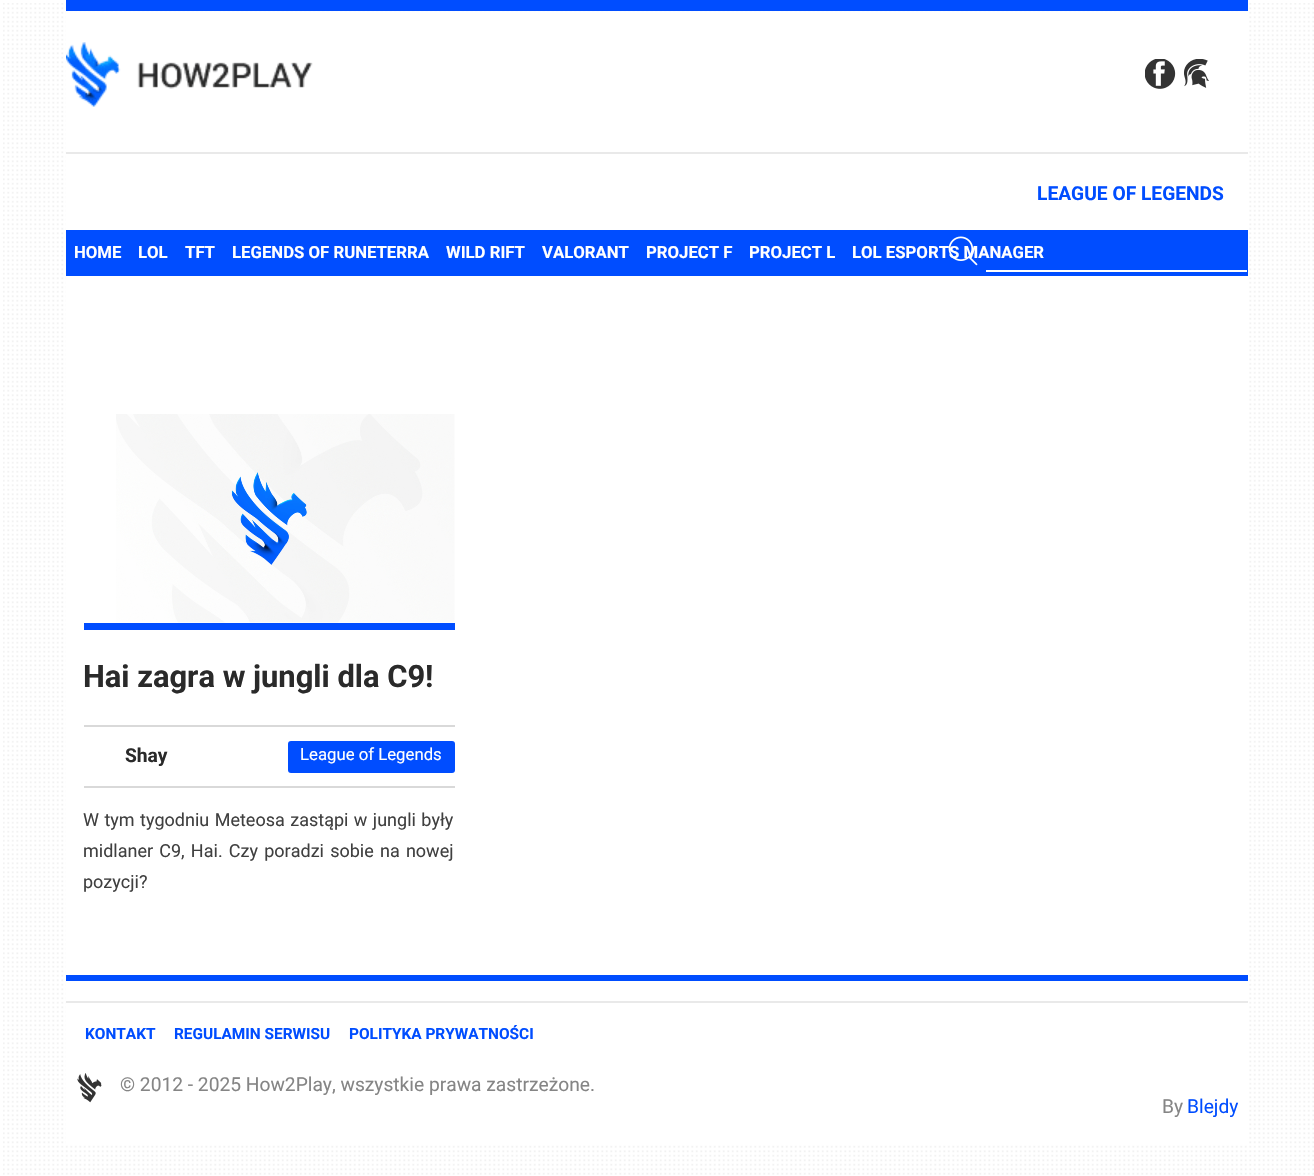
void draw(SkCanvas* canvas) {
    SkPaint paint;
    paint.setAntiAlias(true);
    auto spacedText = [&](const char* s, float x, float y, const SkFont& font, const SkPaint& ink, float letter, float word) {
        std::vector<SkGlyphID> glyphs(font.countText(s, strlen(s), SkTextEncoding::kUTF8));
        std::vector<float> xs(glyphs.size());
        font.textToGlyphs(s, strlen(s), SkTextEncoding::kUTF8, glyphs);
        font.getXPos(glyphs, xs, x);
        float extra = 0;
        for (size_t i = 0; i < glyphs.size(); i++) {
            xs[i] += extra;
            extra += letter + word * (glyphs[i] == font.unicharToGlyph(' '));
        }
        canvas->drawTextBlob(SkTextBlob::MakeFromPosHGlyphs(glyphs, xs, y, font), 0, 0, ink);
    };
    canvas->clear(0xFFFFFFFF);
    canvas->drawImageRect(SkImages::DeferredFromEncodedData(SkData::MakeFromFileName("img1.png")), SkRect::MakeXYWH(3, 3, 1311, 1172), SkSamplingOptions());
    paint.setColor(0xFFFFFFFF);
    canvas->drawRect(SkRect::MakeXYWH(66, 12, 1181, 1132), paint);
    paint.setColor(0xFF004DFF);
    canvas->drawRect(SkRect::MakeXYWH(66, 0, 1182, 11), paint);
    canvas->drawImageRect(SkImages::DeferredFromEncodedData(SkData::MakeFromFileName("img2.png")), SkRect::MakeXYWH(66, 42, 247, 65), SkSamplingOptions());
    canvas->drawImageRect(SkImages::DeferredFromEncodedData(SkData::MakeFromFileName("img3.png")), SkRect::MakeXYWH(1145, 59, 31, 30), SkSamplingOptions());
    canvas->drawImageRect(SkImages::DeferredFromEncodedData(SkData::MakeFromFileName("img4.png")), SkRect::MakeXYWH(1184, 59, 25, 29), SkSamplingOptions());
    paint.setColor(0xFFE9E9E9);
    canvas->drawRect(SkRect::MakeXYWH(66, 152, 1182, 2), paint);
    SkFont font1(fontMgr->matchFamilyStyle("Roboto", SkFontStyle::Bold()), 19.2f);
    font1.setSubpixel(true);
    paint.setColor(0xFF004DFF);
    canvas->drawString("LEAGUE OF LEGENDS", 1037, 200, font1, paint);
    canvas->drawRect(SkRect::MakeXYWH(66, 230, 1182, 46), paint);
    SkFont font2(fontMgr->matchFamilyStyle("Roboto", SkFontStyle::Bold()), 16.75f);
    font2.setSubpixel(true);
    paint.setColor(0xFFFFFFFF);
    canvas->drawString("HOME", 74, 258, font2, paint);
    canvas->drawString("LOL", 138, 258, font2, paint);
    canvas->drawString("TFT", 185, 258, font2, paint);
    canvas->drawString("LEGENDS OF RUNETERRA", 232, 258, font2, paint);
    canvas->drawString("WILD RIFT", 446, 258, font2, paint);
    canvas->drawString("VALORANT", 542, 258, font2, paint);
    canvas->drawString("PROJECT F", 646, 258, font2, paint);
    canvas->drawString("PROJECT L", 749, 258, font2, paint);
    canvas->drawString("LOL ESPORTS MANAGER", 852, 258, font2, paint);
    canvas->drawImageRect(SkImages::DeferredFromEncodedData(SkData::MakeFromFileName("img5.png")), SkRect::MakeXYWH(948, 236, 30, 30), SkSamplingOptions());
    canvas->drawRect(SkRect::MakeXYWH(986, 270, 261, 2), paint);
    canvas->drawImageRect(SkImages::DeferredFromEncodedData(SkData::MakeFromFileName("img6.png")), SkRect::MakeXYWH(116, 414, 339, 209), SkSamplingOptions());
    paint.setColor(0xFF004DFF);
    canvas->drawRect(SkRect::MakeXYWH(84, 623, 371, 7), paint);
    SkFont font3(fontMgr->matchFamilyStyle("Roboto", SkFontStyle::Bold()), 30.9f);
    font3.setSubpixel(true);
    paint.setColor(0xFF2A2A2A);
    canvas->drawString("Hai zagra w jungli dla C9!", 83, 687, font3, paint);
    paint.setColor(0xFFD9D9D9);
    canvas->drawRect(SkRect::MakeXYWH(84, 725, 371, 2), paint);
    canvas->drawRect(SkRect::MakeXYWH(84, 786, 371, 2), paint);
    paint.setColor(0xFF2A2A2A);
    canvas->drawString("Shay", 125, 762, font1, paint);
    paint.setColor(0xFF004DFF);
    canvas->drawRoundRect(SkRect::MakeXYWH(288, 741, 167, 32), 3, 3, paint);
    SkFont font4(fontMgr->matchFamilyStyle("Roboto", SkFontStyle::Normal()), 16.75f);
    font4.setSubpixel(true);
    paint.setColor(0xFFFFFFFF);
    canvas->drawString("League of Legends", 300, 760, font4, paint);
    SkFont font5(fontMgr->matchFamilyStyle("Roboto", SkFontStyle::Normal()), 18);
    font5.setSubpixel(true);
    paint.setColor(0xFF404040);
    spacedText("W tym tygodniu Meteosa zastąpi w jungli były", 83, 826, font5, paint, 0, 1);
    spacedText("midlaner C9, Hai. Czy poradzi sobie na nowej", 83, 857, font5, paint, 0, 1.75f);
    canvas->drawString("pozycji?", 83, 888, font5, paint);
    paint.setColor(0xFF004DFF);
    canvas->drawRect(SkRect::MakeXYWH(66, 975, 1182, 6), paint);
    paint.setColor(0xFFE9E9E9);
    canvas->drawRect(SkRect::MakeXYWH(66, 1001, 1182, 2), paint);
    SkFont font6(fontMgr->matchFamilyStyle("Roboto", SkFontStyle::Bold()), 15.4f);
    font6.setSubpixel(true);
    paint.setColor(0xFF004DFF);
    canvas->drawString("KONTAKT", 85, 1039, font6, paint);
    canvas->drawString("REGULAMIN SERWISU", 174, 1039, font6, paint);
    canvas->drawString("POLITYKA PRYWATNOŚCI", 349, 1039, font6, paint);
    canvas->drawImageRect(SkImages::DeferredFromEncodedData(SkData::MakeFromFileName("img7.png")), SkRect::MakeXYWH(77, 1073, 25, 30), SkSamplingOptions());
    SkFont font7(fontMgr->matchFamilyStyle("Roboto", SkFontStyle::Normal()), 19.2f);
    font7.setSubpixel(true);
    paint.setColor(0xFF858585);
    canvas->drawString("© 2012 - 2025 How2Play, wszystkie prawa zastrzeżone.", 120, 1091, font7, paint);
    canvas->drawString("By", 1162, 1113, font7, paint);
    paint.setColor(0xFF004DFF);
    canvas->drawString("Blejdy", 1187, 1113, font7, paint);
}
